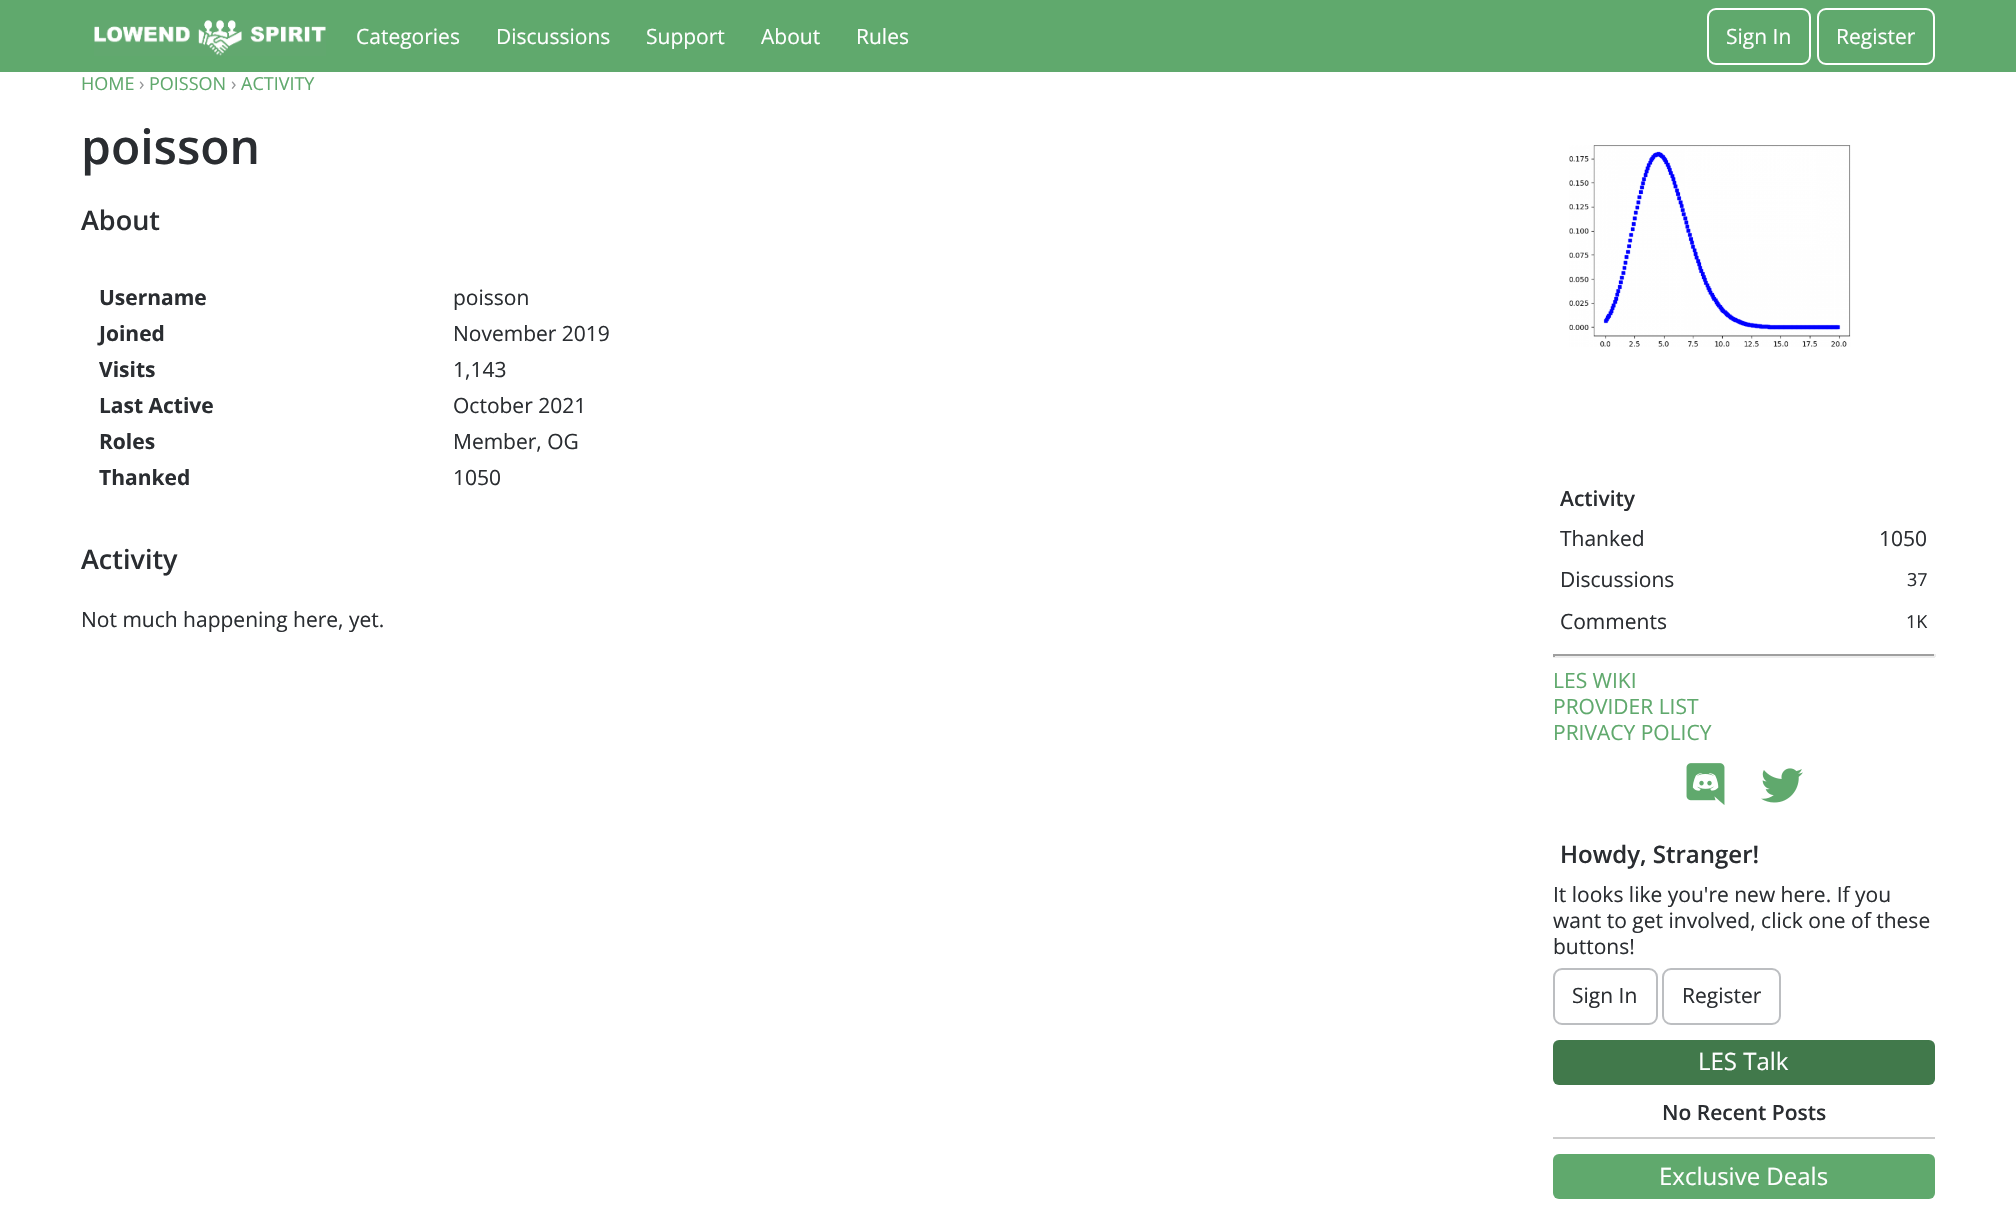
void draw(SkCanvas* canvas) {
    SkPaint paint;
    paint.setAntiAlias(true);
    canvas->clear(0xFFFFFFFF);
    paint.setColor(0xFF60A96D);
    canvas->drawRect(SkRect::MakeXYWH(0, 0, 2016, 72), paint);
    canvas->drawImageRect(SkImages::DeferredFromEncodedData(SkData::MakeFromFileName("img1.png")), SkRect::MakeXYWH(94, 20, 232, 36), SkSamplingOptions());
    SkFont font1(fontMgr->matchFamilyStyle("Open Sans", SkFontStyle::Normal()), 21);
    font1.setSubpixel(true);
    paint.setColor(0xFFFFFFFF);
    canvas->drawString("Categories", 356, 44, font1, paint);
    canvas->drawString("Discussions", 496, 44, font1, paint);
    canvas->drawString("Support", 646, 44, font1, paint);
    canvas->drawString("About", 761, 44, font1, paint);
    canvas->drawString("Rules", 856, 44, font1, paint);
    paint.setStyle(SkPaint::kStroke_Style);
    paint.setStrokeWidth(2);
    canvas->drawRoundRect(SkRect::MakeXYWH(1708, 9, 102, 55), 8, 8, paint);
    paint.setStyle(SkPaint::kFill_Style);
    canvas->drawString("Sign In", 1726, 44, font1, paint);
    paint.setStyle(SkPaint::kStroke_Style);
    canvas->drawRoundRect(SkRect::MakeXYWH(1818, 9, 116, 55), 8, 8, paint);
    paint.setStyle(SkPaint::kFill_Style);
    canvas->drawString("Register", 1836, 44, font1, paint);
    SkFont font2(fontMgr->matchFamilyStyle("Open Sans", SkFontStyle::Normal()), 18);
    font2.setSubpixel(true);
    paint.setColor(0xFF60A96D);
    canvas->drawString("HOME", 81, 90, font2, paint);
    paint.setColor(0xFF959698);
    canvas->drawString("›", 139, 90, font2, paint);
    paint.setColor(0xFF60A96D);
    canvas->drawString("POISSON", 149, 90, font2, paint);
    paint.setColor(0xFF959698);
    canvas->drawString("›", 231, 90, font2, paint);
    paint.setColor(0xFF60A96D);
    canvas->drawString("ACTIVITY", 241, 90, font2, paint);
    SkFont font3(fontMgr->matchFamilyStyle("Open Sans", SkFontStyle(600, SkFontStyle::kNormal_Width, SkFontStyle::kUpright_Slant)), 48);
    font3.setSubpixel(true);
    paint.setColor(0xFF2A2D31);
    canvas->drawString("poisson", 81, 164, font3, paint);
    SkFont font4(fontMgr->matchFamilyStyle("Open Sans", SkFontStyle(600, SkFontStyle::kNormal_Width, SkFontStyle::kUpright_Slant)), 27);
    font4.setSubpixel(true);
    canvas->drawString("About", 81, 230, font4, paint);
    SkFont font5(fontMgr->matchFamilyStyle("Open Sans", SkFontStyle::Bold()), 21);
    font5.setSubpixel(true);
    canvas->drawString("Username", 99, 305, font5, paint);
    canvas->drawString("poisson", 453, 305, font1, paint);
    canvas->drawString("Joined", 99, 341, font5, paint);
    canvas->drawString("November 2019", 453, 341, font1, paint);
    canvas->drawString("Visits", 99, 377, font5, paint);
    canvas->drawString("1,143", 453, 377, font1, paint);
    canvas->drawString("Last Active", 99, 413, font5, paint);
    canvas->drawString("October 2021", 453, 413, font1, paint);
    canvas->drawString("Roles", 99, 449, font5, paint);
    canvas->drawString("Member, OG", 453, 449, font1, paint);
    canvas->drawString("Thanked", 99, 485, font5, paint);
    canvas->drawString("1050", 453, 485, font1, paint);
    canvas->drawString("Activity", 81, 569, font4, paint);
    canvas->drawString("Not much happening here, yet.", 81, 627, font1, paint);
    canvas->drawImageRect(SkImages::DeferredFromEncodedData(SkData::MakeFromFileName("img2.png")), SkRect::MakeXYWH(1569, 145, 282, 202), SkSamplingOptions());
    SkFont font6(fontMgr->matchFamilyStyle("Open Sans", SkFontStyle(600, SkFontStyle::kNormal_Width, SkFontStyle::kUpright_Slant)), 21);
    font6.setSubpixel(true);
    canvas->drawString("Activity", 1560, 506, font6, paint);
    canvas->drawString("Thanked", 1560, 546, font1, paint);
    canvas->drawString("1050", 1879, 546, font1, paint);
    canvas->drawString("Discussions", 1560, 587, font1, paint);
    canvas->drawString("37", 1907, 586, font2, paint);
    canvas->drawString("Comments", 1560, 629, font1, paint);
    canvas->drawString("1K", 1906, 628, font2, paint);
    paint.setColor(0xFF9F9F9F);
    canvas->drawRect(SkRect::MakeXYWH(1553, 654, 382, 2), paint);
    paint.setColor(0xFFEEEEEE);
    canvas->drawRect(SkRect::MakeXYWH(1934, 654, 2, 3), paint);
    canvas->drawRect(SkRect::MakeXYWH(1553, 656, 382, 2), paint);
    paint.setColor(0xFF9F9F9F);
    canvas->drawRect(SkRect::MakeXYWH(1553, 654, 2, 3), paint);
    paint.setColor(0xFF60A96D);
    canvas->drawString("LES WIKI", 1553, 688, font1, paint);
    canvas->drawString("PROVIDER LIST", 1553, 714, font1, paint);
    canvas->drawString("PRIVACY POLICY", 1553, 740, font1, paint);
    canvas->drawImageRect(SkImages::DeferredFromEncodedData(SkData::MakeFromFileName("img3.png")), SkRect::MakeXYWH(1686, 763, 39, 42), SkSamplingOptions());
    canvas->drawImageRect(SkImages::DeferredFromEncodedData(SkData::MakeFromFileName("img4.png")), SkRect::MakeXYWH(1761, 768, 42, 35), SkSamplingOptions());
    SkFont font7(fontMgr->matchFamilyStyle("Open Sans", SkFontStyle(600, SkFontStyle::kNormal_Width, SkFontStyle::kUpright_Slant)), 24);
    font7.setSubpixel(true);
    paint.setColor(0xFF2A2D31);
    canvas->drawString("Howdy, Stranger!", 1560, 863, font7, paint);
    canvas->drawString("It looks like you're new here. If you", 1553, 902, font1, paint);
    canvas->drawString("want to get involved, click one of these", 1553, 928, font1, paint);
    canvas->drawString("buttons!", 1553, 954, font1, paint);
    paint.setStyle(SkPaint::kStroke_Style);
    paint.setColor(0xFFBCBEC1);
    canvas->drawRoundRect(SkRect::MakeXYWH(1554, 969, 103, 55), 8, 8, paint);
    paint.setStyle(SkPaint::kFill_Style);
    paint.setColor(0xFF2A2D31);
    canvas->drawString("Sign In", 1572, 1003, font1, paint);
    paint.setStyle(SkPaint::kStroke_Style);
    paint.setColor(0xFFBCBEC1);
    canvas->drawRoundRect(SkRect::MakeXYWH(1663, 969, 117, 55), 8, 8, paint);
    paint.setStyle(SkPaint::kFill_Style);
    paint.setColor(0xFF2A2D31);
    canvas->drawString("Register", 1682, 1003, font1, paint);
    paint.setColor(0xFF41794B);
    canvas->drawRoundRect(SkRect::MakeXYWH(1553, 1040, 382, 45), 6, 6, paint);
    SkFont font8(fontMgr->matchFamilyStyle("Open Sans", SkFontStyle::Normal()), 24);
    font8.setSubpixel(true);
    paint.setColor(0xFFFFFFFF);
    canvas->drawString("LES Talk", 1698, 1070, font8, paint);
    paint.setColor(0xFFCCCCCC);
    canvas->drawRect(SkRect::MakeXYWH(1553, 1137, 382, 2), paint);
    paint.setColor(0xFF2A2D31);
    canvas->drawString("No Recent Posts", 1662, 1120, font6, paint);
    paint.setColor(0xFF60A96D);
    canvas->drawRoundRect(SkRect::MakeXYWH(1553, 1154, 382, 45), 6, 6, paint);
    paint.setColor(0xFFFFFFFF);
    canvas->drawString("Exclusive Deals", 1659, 1185, font8, paint);
}
